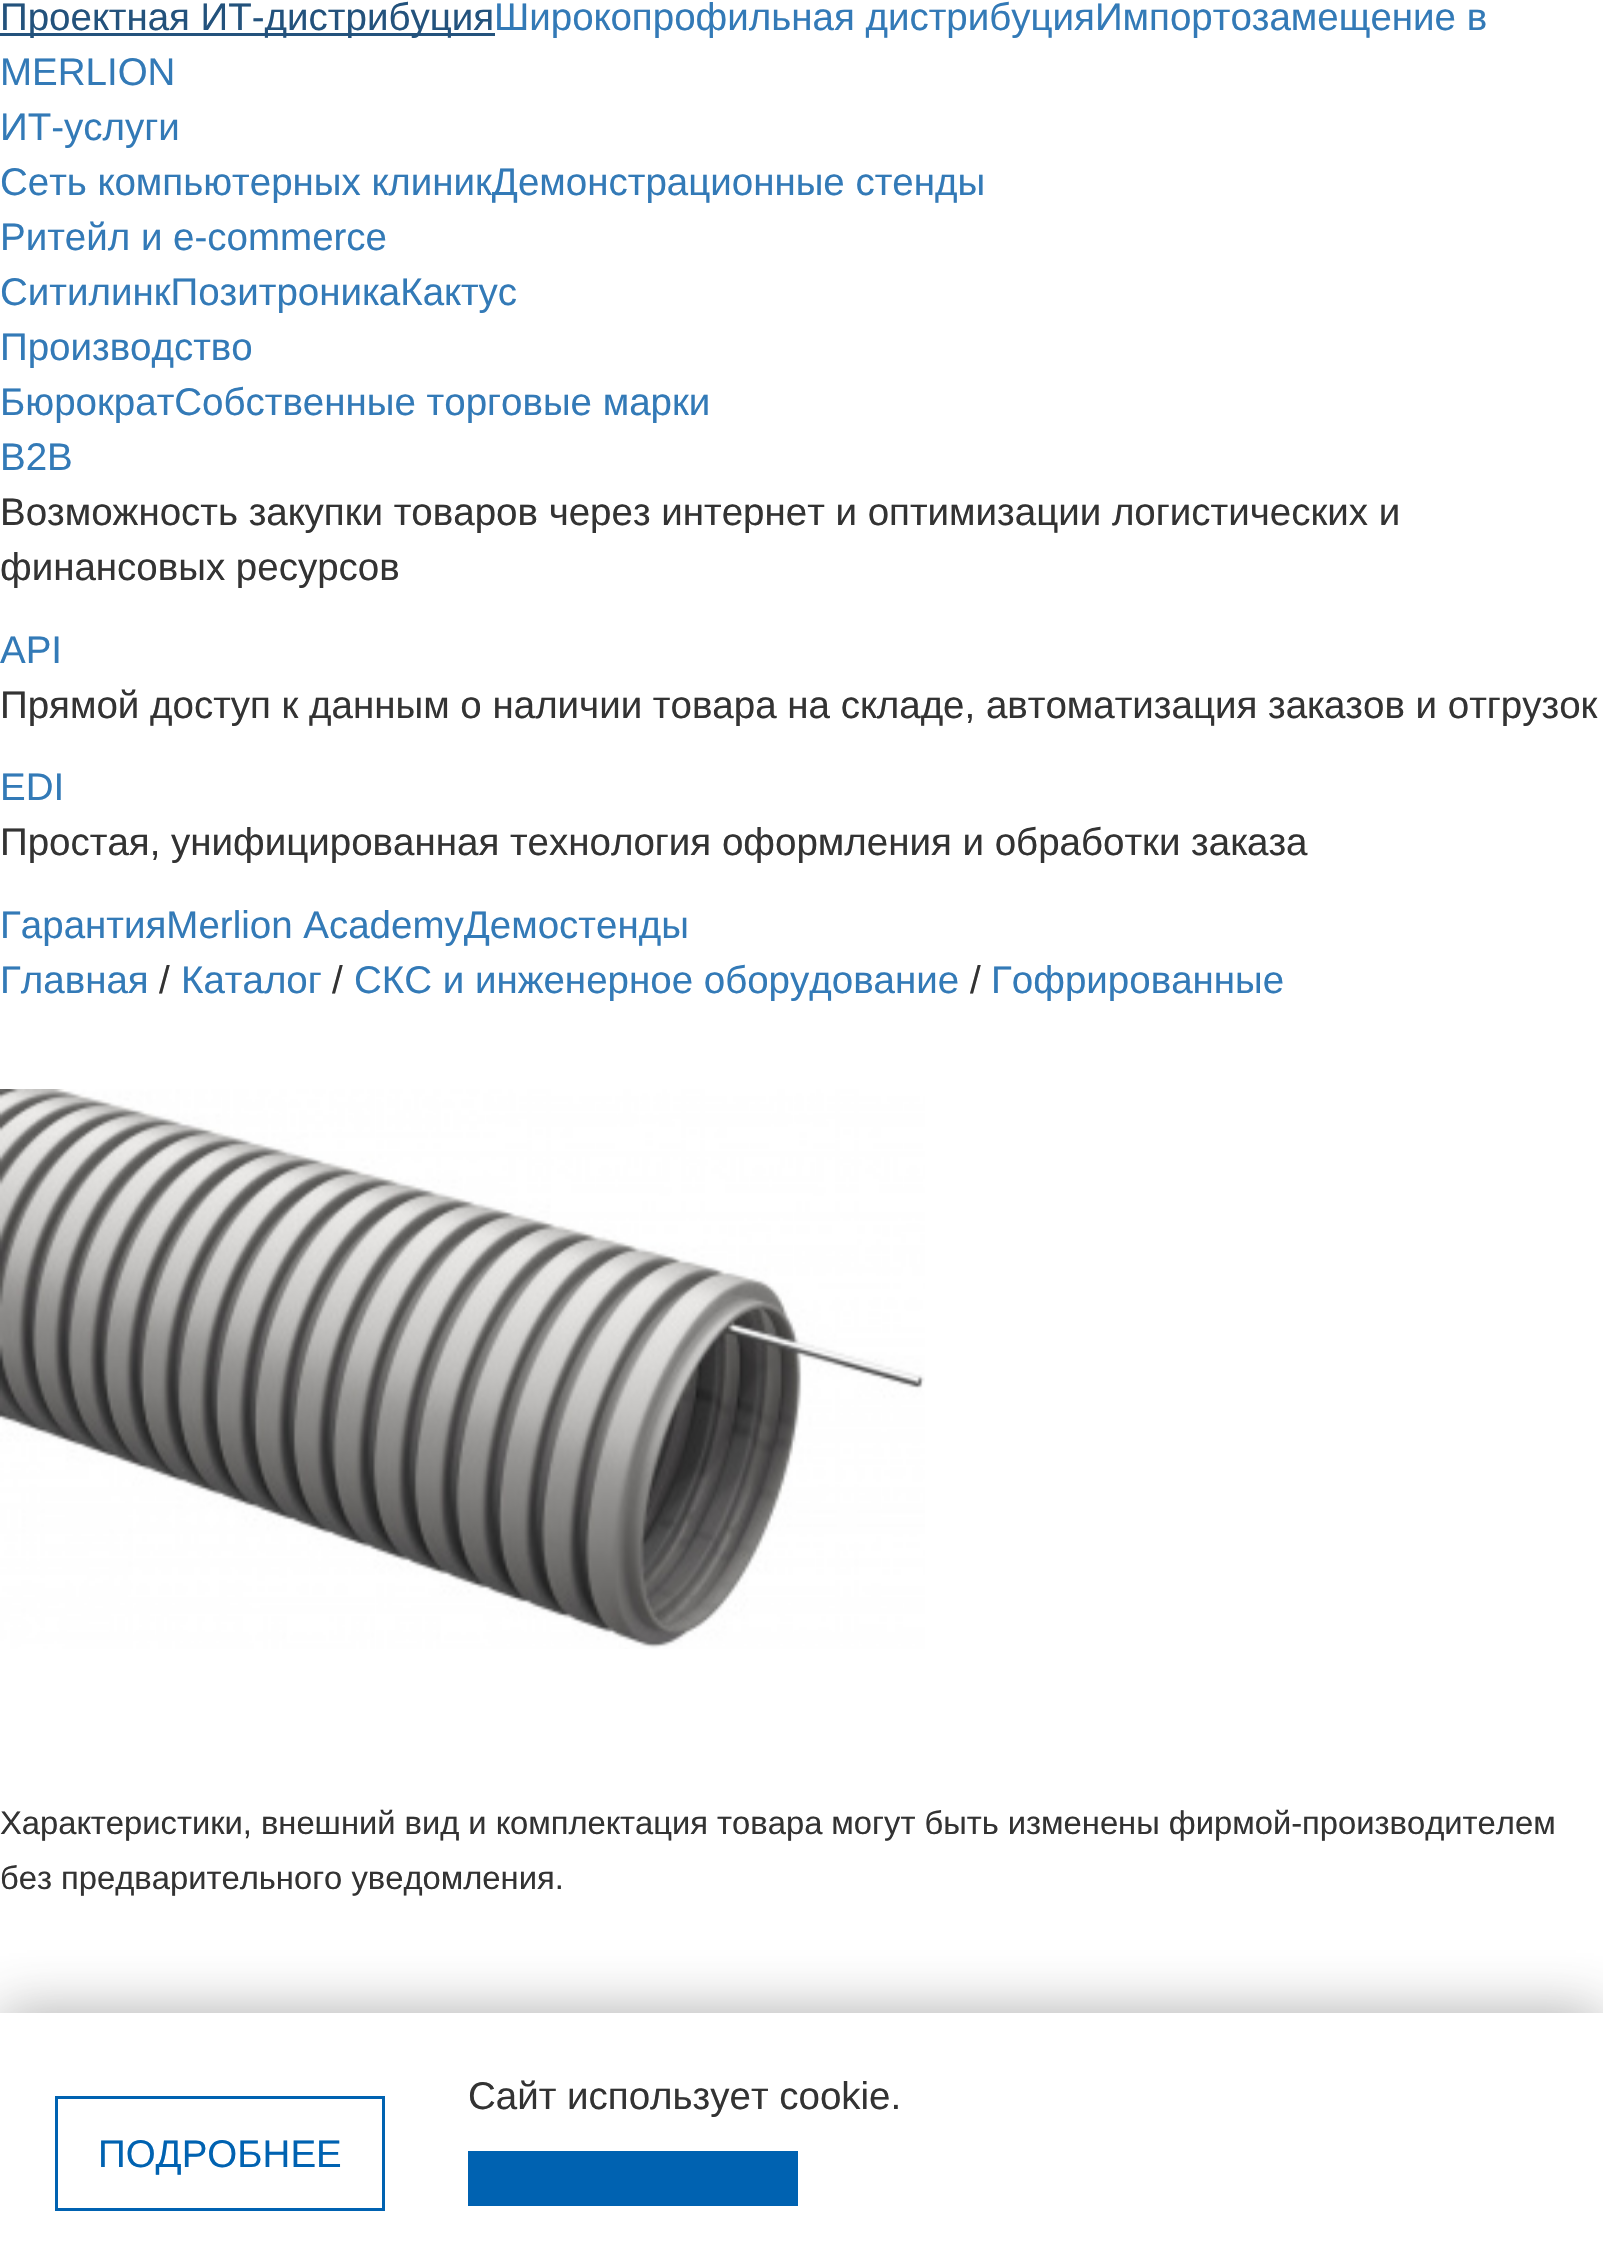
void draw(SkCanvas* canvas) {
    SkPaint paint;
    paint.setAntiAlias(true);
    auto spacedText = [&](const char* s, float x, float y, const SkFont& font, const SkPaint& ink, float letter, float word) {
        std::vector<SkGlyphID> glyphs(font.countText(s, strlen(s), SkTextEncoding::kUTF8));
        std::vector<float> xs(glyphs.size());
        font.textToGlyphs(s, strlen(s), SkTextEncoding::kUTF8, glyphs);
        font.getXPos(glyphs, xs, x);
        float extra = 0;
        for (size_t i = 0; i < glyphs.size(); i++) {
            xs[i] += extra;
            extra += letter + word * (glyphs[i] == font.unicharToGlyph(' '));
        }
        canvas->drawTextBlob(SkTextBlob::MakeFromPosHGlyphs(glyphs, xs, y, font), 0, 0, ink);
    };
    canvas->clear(0xFFFFFFFF);
    paint.setColor(0xFF23527C);
    canvas->drawRect(SkRect::MakeXYWH(0, 33, 495, 3), paint);
    SkFont font1(fontMgr->matchFamilyStyle("Liberation Sans", SkFontStyle::Normal()), 38.5f);
    font1.setSubpixel(true);
    canvas->drawString("Проектная ИТ-дистрибуция", 0, 30, font1, paint);
    paint.setColor(0xFF337AB7);
    canvas->drawString("Широкопрофильная дистрибуцияИмпортозамещение в", 494, 30, font1, paint);
    canvas->drawString("MERLION", 0, 85, font1, paint);
    canvas->drawString("ИТ-услуги", 0, 140, font1, paint);
    canvas->drawString("Сеть компьютерных клиникДемонстрационные стенды", 0, 195, font1, paint);
    canvas->drawString("Ритейл и e-commerce", 0, 250, font1, paint);
    canvas->drawString("СитилинкПозитроникаКактус", 0, 305, font1, paint);
    canvas->drawString("Производство", 0, 360, font1, paint);
    canvas->drawString("БюрократСобственные торговые марки", 0, 415, font1, paint);
    canvas->drawString("B2B", 0, 470, font1, paint);
    paint.setColor(0xFF333333);
    canvas->drawString("Возможность закупки товаров через интернет и оптимизации логистических и", 0, 525, font1, paint);
    canvas->drawString("финансовых ресурсов", 0, 580, font1, paint);
    paint.setColor(0xFF337AB7);
    canvas->drawString("API", 0, 663, font1, paint);
    paint.setColor(0xFF333333);
    canvas->drawString("Прямой доступ к данным о наличии товара на складе, автоматизация заказов и отгрузок", 0, 718, font1, paint);
    paint.setColor(0xFF337AB7);
    canvas->drawString("EDI", 0, 800, font1, paint);
    paint.setColor(0xFF333333);
    canvas->drawString("Простая, унифицированная технология оформления и обработки заказа", 0, 855, font1, paint);
    paint.setColor(0xFF337AB7);
    canvas->drawString("ГарантияMerlion AcademyДемостенды", 0, 938, font1, paint);
    canvas->drawString("Главная", 0, 993, font1, paint);
    paint.setColor(0xFF333333);
    canvas->drawString("/", 159, 993, font1, paint);
    paint.setColor(0xFF337AB7);
    canvas->drawString("Каталог", 181, 993, font1, paint);
    paint.setColor(0xFF333333);
    canvas->drawString("/", 332, 993, font1, paint);
    paint.setColor(0xFF337AB7);
    canvas->drawString("СКС и инженерное оборудование", 354, 993, font1, paint);
    paint.setColor(0xFF333333);
    canvas->drawString("/", 970, 993, font1, paint);
    paint.setColor(0xFF337AB7);
    canvas->drawString("Гофрированные", 991, 993, font1, paint);
    canvas->drawImageRect(SkImages::DeferredFromEncodedData(SkData::MakeFromFileName("img1.png")), SkRect::MakeXYWH(0, 1089, 925, 560), SkSamplingOptions());
    SkFont font2(fontMgr->matchFamilyStyle("Liberation Sans", SkFontStyle::Normal()), 32.75f);
    font2.setSubpixel(true);
    paint.setColor(0xFF333333);
    spacedText("Характеристики, внешний вид и комплектация товара могут быть изменены фирмой-производителем", 0, 1834, font2, paint, 0, -0.1f);
    canvas->drawString("без предварительного уведомления.", 0, 1889, font2, paint);
    paint.setColor(0x69323232);
    paint.setMaskFilter(SkMaskFilter::MakeBlur(kNormal_SkBlurStyle, 27.5f));
    canvas->drawRect(SkRect::MakeXYWH(0, 2013, 1603, 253), paint);
    paint.setMaskFilter(nullptr);
    paint.setColor(0xFFFFFFFF);
    canvas->drawRect(SkRect::MakeXYWH(0, 2013, 1603, 252), paint);
    paint.setColor(0xFF333333);
    canvas->drawString("Сайт использует cookie.", 468, 2109, font1, paint);
    paint.setStyle(SkPaint::kStroke_Style);
    paint.setStrokeWidth(3);
    paint.setColor(0xFF0062B1);
    canvas->drawRect(SkRect::MakeXYWH(56.5f, 2097.5f, 327, 112), paint);
    paint.setStyle(SkPaint::kFill_Style);
    canvas->drawString("ПОДРОБНЕЕ", 98, 2167, font1, paint);
    canvas->drawRect(SkRect::MakeXYWH(468, 2151, 330, 55), paint);
}
